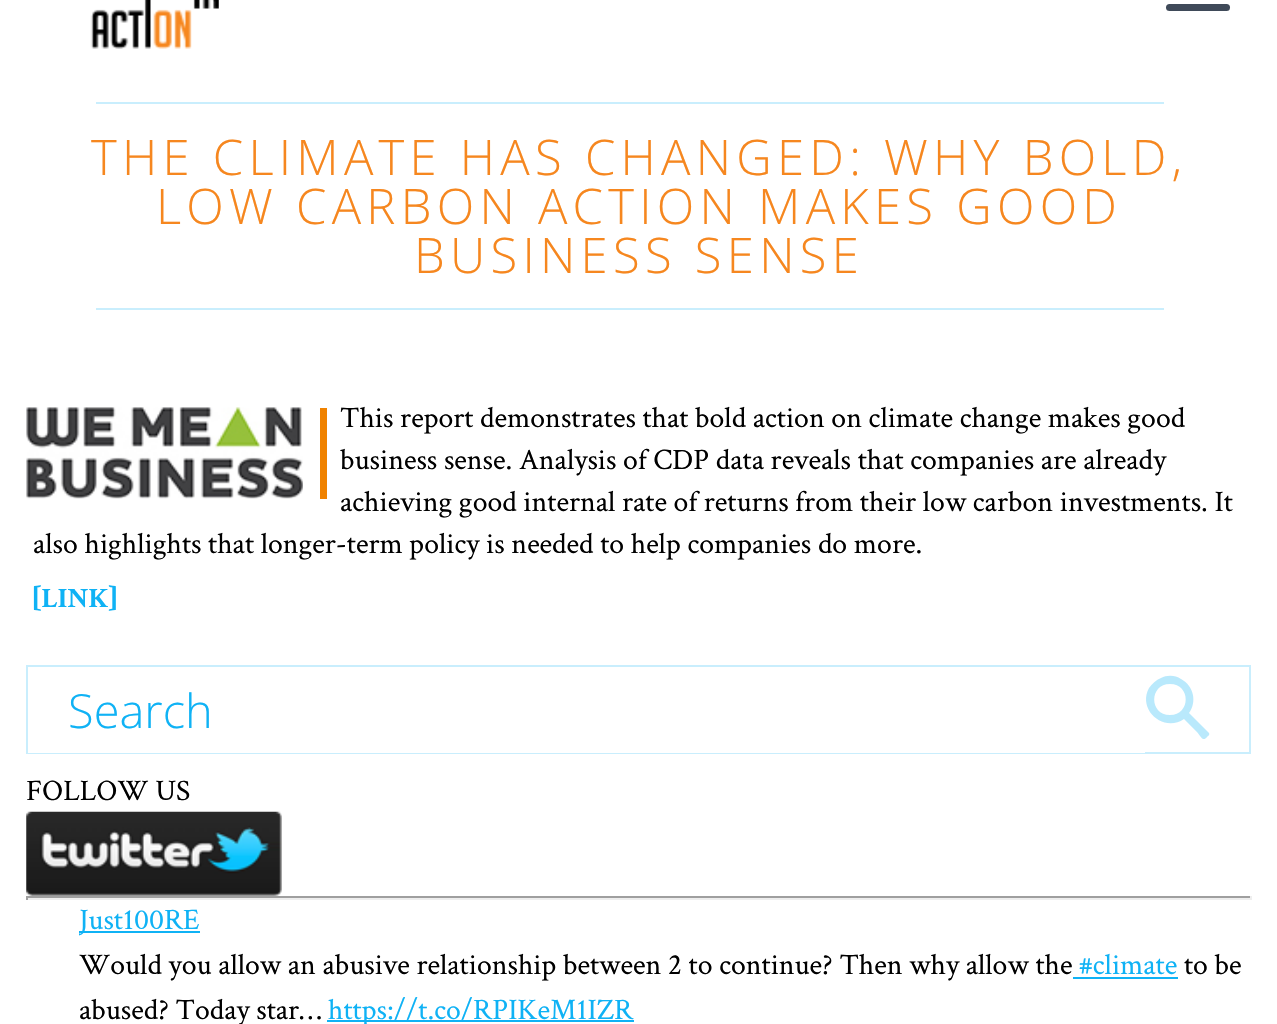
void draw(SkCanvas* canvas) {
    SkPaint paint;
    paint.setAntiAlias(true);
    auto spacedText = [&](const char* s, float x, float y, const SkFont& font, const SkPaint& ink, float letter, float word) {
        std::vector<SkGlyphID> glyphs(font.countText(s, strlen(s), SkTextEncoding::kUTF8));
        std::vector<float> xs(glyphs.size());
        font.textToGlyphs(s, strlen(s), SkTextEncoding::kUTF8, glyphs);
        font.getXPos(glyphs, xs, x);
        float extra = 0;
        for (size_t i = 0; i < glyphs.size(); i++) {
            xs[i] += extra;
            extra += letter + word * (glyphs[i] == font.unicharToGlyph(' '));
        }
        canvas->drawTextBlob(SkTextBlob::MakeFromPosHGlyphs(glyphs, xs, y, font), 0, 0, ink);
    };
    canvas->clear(0xFFFFFFFF);
    canvas->drawImageRect(SkImages::DeferredFromEncodedData(SkData::MakeFromFileName("img1.png")), SkRect::MakeXYWH(90, 0, 129, 49), SkSamplingOptions());
    paint.setColor(0xFF3F4A59);
    canvas->drawRoundRect(SkRect::MakeXYWH(1166, 4, 64, 7), 3.5f, 3.5f, paint);
    paint.setColor(0xFFC9EEFD);
    canvas->drawRect(SkRect::MakeXYWH(96, 102, 1068, 2), paint);
    SkFont font1(fontMgr->matchFamilyStyle("Open Sans", SkFontStyle(300, SkFontStyle::kNormal_Width, SkFontStyle::kUpright_Slant)), 49);
    font1.setSubpixel(true);
    paint.setColor(0xFFF6871F);
    spacedText("THE CLIMATE HAS CHANGED: WHY BOLD,", 91, 175, font1, paint, 5.25f, 0);
    spacedText("LOW CARBON ACTION MAKES GOOD", 156, 224, font1, paint, 5.25f, 0);
    spacedText("BUSINESS SENSE", 414, 273, font1, paint, 5.25f, 0);
    paint.setColor(0xFFC9EEFD);
    canvas->drawRect(SkRect::MakeXYWH(96, 308, 1068, 2), paint);
    SkFont font2(fontMgr->matchFamilyStyle("Crimson Text", SkFontStyle::Normal()), 29.75f);
    font2.setSubpixel(true);
    paint.setColor(0xFF000000);
    canvas->drawString("This report demonstrates that bold action on climate change makes good", 340, 427, font2, paint);
    canvas->drawString("business sense. Analysis of CDP data reveals that companies are already", 340, 469, font2, paint);
    canvas->drawString("achieving good internal rate of returns from their low carbon investments. It", 340, 511, font2, paint);
    canvas->drawString("also highlights that longer-term policy is needed to help companies do more.", 33, 553, font2, paint);
    SkFont font3(fontMgr->matchFamilyStyle("Crimson Text", SkFontStyle::Bold()), 28);
    font3.setSubpixel(true);
    paint.setColor(0xFF0FB2F5);
    canvas->drawString("[LINK]", 33, 607, font3, paint);
    canvas->drawImageRect(SkImages::DeferredFromEncodedData(SkData::MakeFromFileName("img2.png")), SkRect::MakeXYWH(26, 407, 277, 92), SkSamplingOptions());
    paint.setColor(0xFFF08200);
    canvas->drawRect(SkRect::MakeXYWH(320, 408, 7, 91), paint);
    paint.setStyle(SkPaint::kStroke_Style);
    paint.setStrokeWidth(2);
    paint.setColor(0xFFC9EEFD);
    canvas->drawRect(SkRect::MakeXYWH(27, 666, 1223, 87), paint);
    paint.setStyle(SkPaint::kFill_Style);
    paint.setColor(0xFFFFFFFF);
    canvas->drawRect(SkRect::MakeXYWH(28, 752, 1117, 1), paint);
    SkFont font4(fontMgr->matchFamilyStyle("Open Sans", SkFontStyle(300, SkFontStyle::kNormal_Width, SkFontStyle::kUpright_Slant)), 47);
    font4.setSubpixel(true);
    paint.setColor(0xFF0FB2F5);
    canvas->drawString("Search", 68, 728, font4, paint);
    paint.setColor(0xFFB9E9FC);
    canvas->drawPath(SkPathBuilder().moveTo(1209, 733).cubicTo(1210, 735, 1208, 736, 1207, 737).cubicTo(1203, 742, 1201, 737, 1197, 732).lineTo(1184, 719).cubicTo(1164, 733, 1137, 710, 1149, 688).cubicTo(1152, 684, 1156, 680, 1161, 678).cubicTo(1167, 675, 1175, 675, 1181, 679).cubicTo(1194, 686, 1197, 702, 1189, 713).close().moveTo(1170, 684).cubicTo(1149, 684, 1149, 715, 1170, 715).cubicTo(1191, 715, 1191, 684, 1170, 684).close().detach(), paint);
    paint.setColor(0xFF000000);
    canvas->drawString("FOLLOW US", 26, 800, font2, paint);
    canvas->drawImageRect(SkImages::DeferredFromEncodedData(SkData::MakeFromFileName("img3.png")), SkRect::MakeXYWH(26, 811, 256, 85), SkSamplingOptions());
    paint.setColor(0xFF9F9F9F);
    canvas->drawRect(SkRect::MakeXYWH(26, 896, 1225, 2), paint);
    paint.setColor(0xFFEEEEEE);
    canvas->drawRect(SkRect::MakeXYWH(1250, 896, 2, 4), paint);
    canvas->drawRect(SkRect::MakeXYWH(26, 898, 1225, 2), paint);
    paint.setColor(0xFF9F9F9F);
    canvas->drawRect(SkRect::MakeXYWH(26, 896, 2, 4), paint);
    paint.setColor(0xFF0FB2F5);
    canvas->drawRect(SkRect::MakeXYWH(79, 931, 121, 2), paint);
    canvas->save();
    canvas->clipRect(SkRect::MakeXYWH(79, 900, 1172, 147));
    canvas->drawString("Just100RE", 79, 929, font2, paint);
    canvas->restore();
    paint.setColor(0xFF000000);
    canvas->drawString("Would you allow an abusive relationship between 2 to continue? Then why allow the", 79, 974, font2, paint);
    paint.setColor(0xFF0FB2F5);
    canvas->drawString("#climate", 1079, 974, font2, paint);
    canvas->drawRect(SkRect::MakeXYWH(1073, 977, 105, 2), paint);
    paint.setColor(0xFF000000);
    canvas->drawString("to be", 1184, 974, font2, paint);
    canvas->drawString("abused? Today star…", 79, 1019, font2, paint);
    paint.setColor(0xFF0FB2F5);
    canvas->drawRect(SkRect::MakeXYWH(327, 1020, 307, 2), paint);
    canvas->drawString("https://t.co/RPIKeM1IZR", 328, 1019, font2, paint);
}
